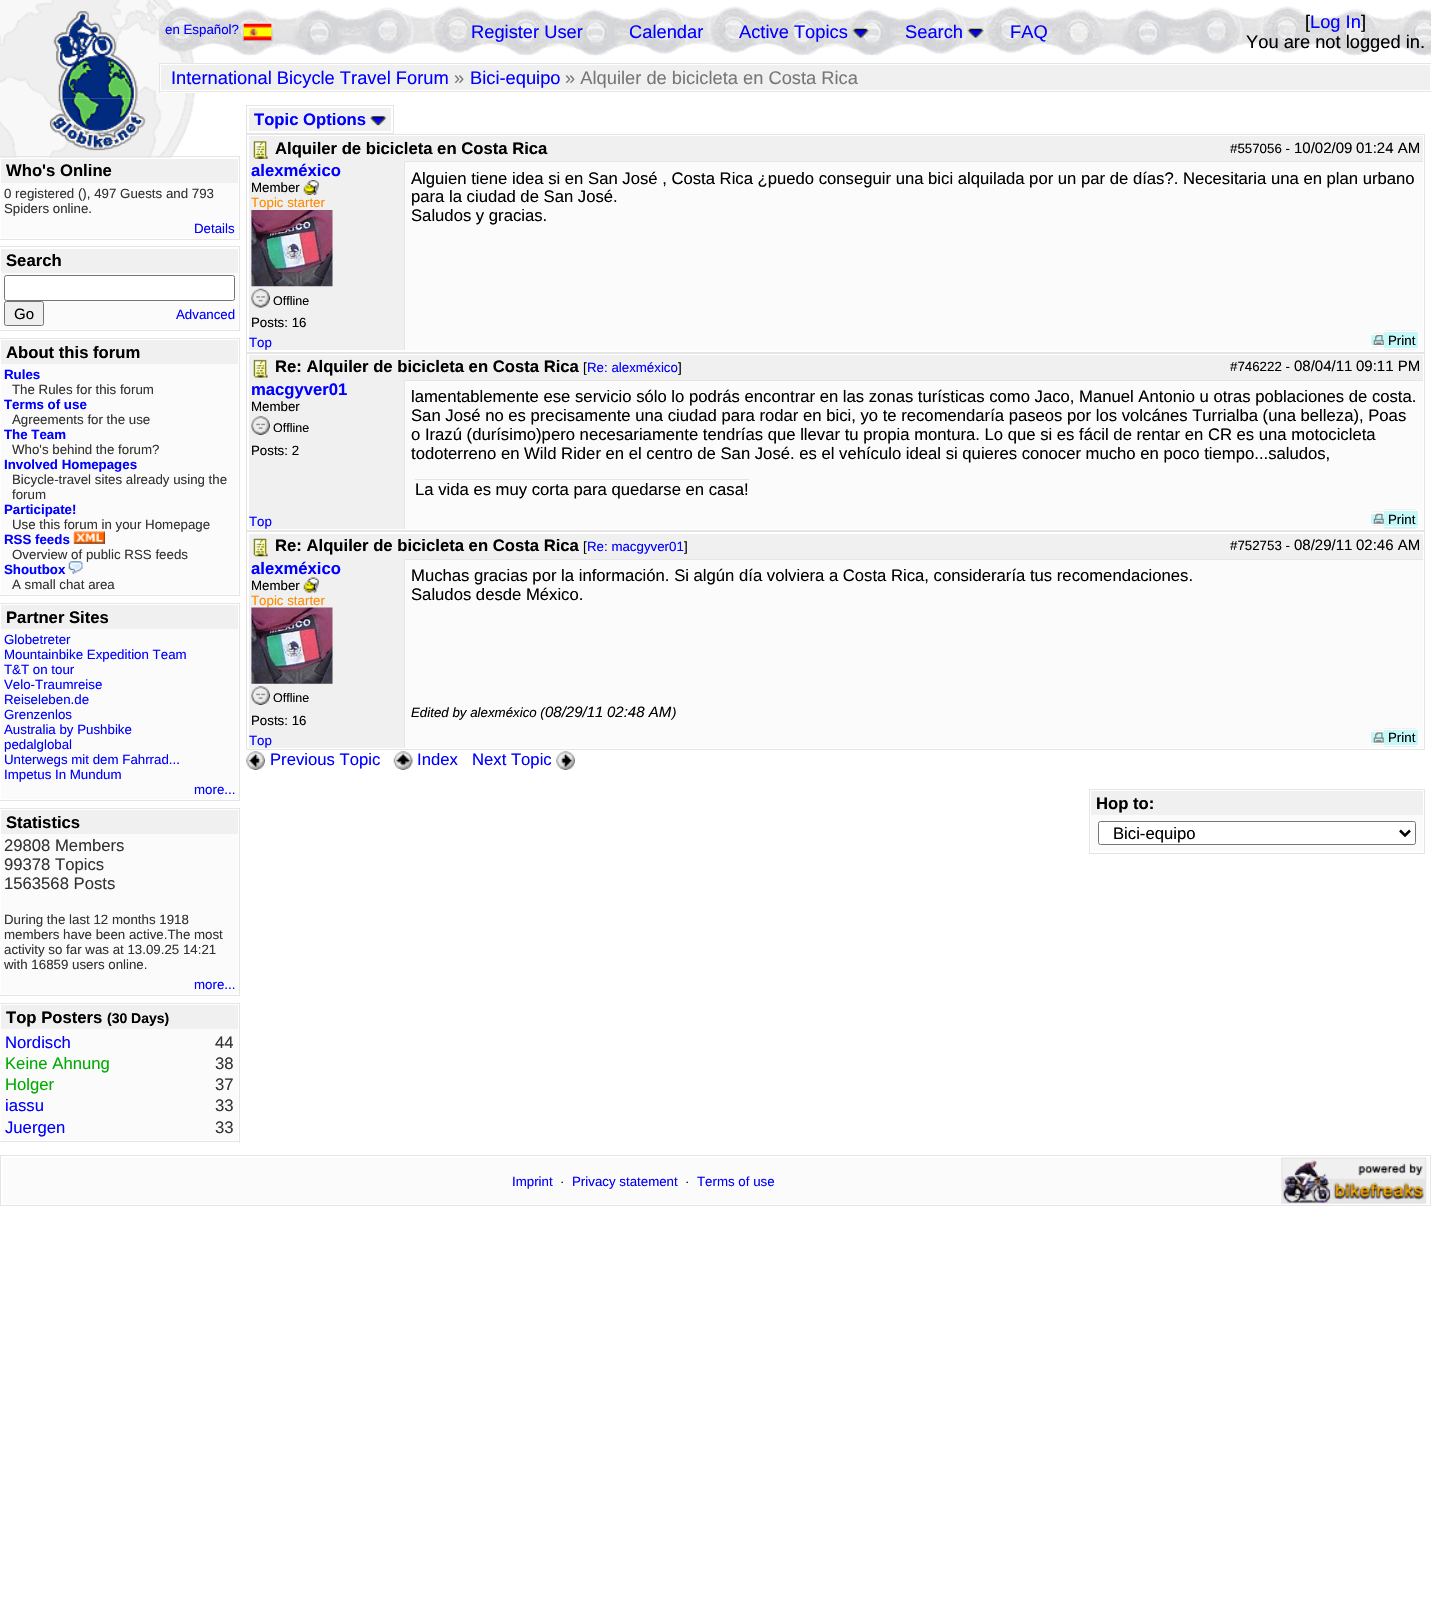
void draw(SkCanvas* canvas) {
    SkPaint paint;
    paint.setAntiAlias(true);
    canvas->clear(0xFFFFFFFF);
    canvas->drawImageRect(SkImages::DeferredFromEncodedData(SkData::MakeFromFileName("img1.png")), SkRect::MakeXYWH(0, 0, 195, 158), SkSamplingOptions());
    canvas->drawImageRect(SkImages::DeferredFromEncodedData(SkData::MakeFromFileName("img7.png")), SkRect::MakeXYWH(49, 98, 97, 53), SkSamplingOptions());
    canvas->drawImageRect(SkImages::DeferredFromEncodedData(SkData::MakeFromFileName("img2.png")), SkRect::MakeXYWH(53, 11, 85, 88), SkSamplingOptions());
    canvas->drawImageRect(SkImages::DeferredFromEncodedData(SkData::MakeFromFileName("img3.png")), SkRect::MakeXYWH(158, 6, 1273, 51), SkSamplingOptions());
    SkFont font1(fontMgr->matchFamilyStyle("Liberation Sans", SkFontStyle::Normal()), 13.3f);
    font1.setSubpixel(true);
    paint.setColor(0xFF0000FF);
    canvas->drawString("en Español?", 165, 34, font1, paint);
    canvas->drawImageRect(SkImages::DeferredFromEncodedData(SkData::MakeFromFileName("img4.png")), SkRect::MakeXYWH(242, 22, 31, 20), SkSamplingOptions());
    SkFont font2(fontMgr->matchFamilyStyle("Liberation Sans", SkFontStyle::Normal()), 18.3f);
    font2.setSubpixel(true);
    canvas->drawString("Register User", 471, 38, font2, paint);
    canvas->drawString("Calendar", 629, 38, font2, paint);
    canvas->drawString("Active Topics", 739, 38, font2, paint);
    canvas->drawImageRect(SkImages::DeferredFromEncodedData(SkData::MakeFromFileName("img5.png")), SkRect::MakeXYWH(852, 28, 17, 10), SkSamplingOptions());
    canvas->drawString("Search", 905, 38, font2, paint);
    canvas->drawImageRect(SkImages::DeferredFromEncodedData(SkData::MakeFromFileName("img6.png")), SkRect::MakeXYWH(967, 28, 17, 10), SkSamplingOptions());
    canvas->drawString("FAQ", 1010, 38, font2, paint);
    paint.setColor(0xFF000000);
    canvas->drawString("[", 1305, 28, font2, paint);
    paint.setColor(0xFF0000FF);
    canvas->drawString("Log In", 1310, 28, font2, paint);
    paint.setColor(0xFF000000);
    canvas->drawString("]", 1361, 28, font2, paint);
    canvas->drawString("You are not logged in.", 1246, 48, font2, paint);
    paint.setColor(0xFFFFFFFF);
    canvas->drawRect(SkRect::MakeXYWH(160, 64, 35, 29), paint);
    paint.setColor(0xFFE5E5E5);
    canvas->drawRect(SkRect::MakeXYWH(159, 63, 1272, 1), paint);
    canvas->drawRect(SkRect::MakeXYWH(159, 91, 1272, 1), paint);
    canvas->drawRect(SkRect::MakeXYWH(159, 63, 1, 30), paint);
    paint.setColor(0xFFF0F0F0);
    canvas->drawRect(SkRect::MakeXYWH(161, 65, 1269, 25), paint);
    paint.setColor(0xFF0000FF);
    canvas->drawString("International Bicycle Travel Forum", 171, 84, font2, paint);
    paint.setColor(0xFF777777);
    canvas->drawString("»", 454, 84, font2, paint);
    paint.setColor(0xFF0000FF);
    canvas->drawString("Bici-equipo", 470, 84, font2, paint);
    paint.setColor(0xFF777777);
    canvas->drawString("» Alquiler de bicicleta en Costa Rica", 565, 84, font2, paint);
    paint.setColor(0xFFE5E5E5);
    canvas->drawRect(SkRect::MakeXYWH(0, 156, 240, 1), paint);
    canvas->drawRect(SkRect::MakeXYWH(239, 156, 1, 84), paint);
    canvas->drawRect(SkRect::MakeXYWH(0, 239, 240, 1), paint);
    paint.setColor(0xFFF0F0F0);
    canvas->drawRect(SkRect::MakeXYWH(1, 159, 237, 24), paint);
    SkFont font3(fontMgr->matchFamilyStyle("Liberation Sans", SkFontStyle::Bold()), 16.67f);
    font3.setSubpixel(true);
    paint.setColor(0xFF000000);
    canvas->drawString("Who's Online", 6, 176, font3, paint);
    paint.setColor(0xFFFBFBFB);
    canvas->drawRect(SkRect::MakeXYWH(1, 183, 237, 55), paint);
    paint.setColor(0xFF333333);
    canvas->drawString("0 registered (), 497 Guests and 793", 4, 198, font1, paint);
    canvas->drawString("Spiders online.", 4, 213, font1, paint);
    paint.setColor(0xFF0000FF);
    canvas->drawString("Details", 194, 233, font1, paint);
    paint.setColor(0xFFE5E5E5);
    canvas->drawRect(SkRect::MakeXYWH(0, 246, 240, 1), paint);
    canvas->drawRect(SkRect::MakeXYWH(239, 246, 1, 85), paint);
    canvas->drawRect(SkRect::MakeXYWH(0, 330, 240, 1), paint);
    paint.setColor(0xFFF0F0F0);
    canvas->drawRect(SkRect::MakeXYWH(1, 249, 237, 24), paint);
    paint.setColor(0xFF000000);
    canvas->drawString("Search", 6, 266, font3, paint);
    paint.setColor(0xFFFBFBFB);
    canvas->drawRect(SkRect::MakeXYWH(1, 273, 237, 56), paint);
    paint.setColor(0xFFFFFFFF);
    canvas->drawRoundRect(SkRect::MakeXYWH(4.5f, 275.5f, 230, 25), 2, 2, paint);
    paint.setStyle(SkPaint::kStroke_Style);
    paint.setStrokeWidth(1);
    paint.setColor(0xFF767676);
    canvas->drawRoundRect(SkRect::MakeXYWH(4.5f, 275.5f, 230, 25), 2, 2, paint);
    paint.setStyle(SkPaint::kFill_Style);
    paint.setColor(0xFFEFEFEF);
    canvas->drawRoundRect(SkRect::MakeXYWH(4.5f, 301.5f, 39, 24), 2, 2, paint);
    paint.setStyle(SkPaint::kStroke_Style);
    paint.setColor(0xFF767676);
    canvas->drawRoundRect(SkRect::MakeXYWH(4.5f, 301.5f, 39, 24), 2, 2, paint);
    SkFont font4(fontMgr->matchFamilyStyle("Liberation Sans", SkFontStyle::Normal()), 15);
    font4.setSubpixel(true);
    paint.setStyle(SkPaint::kFill_Style);
    paint.setColor(0xFF000000);
    canvas->drawString("Go", 14, 319, font4, paint);
    paint.setColor(0xFF0000FF);
    canvas->drawString("Advanced", 176, 319, font1, paint);
    paint.setColor(0xFFE5E5E5);
    canvas->drawRect(SkRect::MakeXYWH(0, 338, 240, 1), paint);
    canvas->drawRect(SkRect::MakeXYWH(239, 338, 1, 258), paint);
    canvas->drawRect(SkRect::MakeXYWH(0, 595, 240, 1), paint);
    paint.setColor(0xFFF0F0F0);
    canvas->drawRect(SkRect::MakeXYWH(1, 340, 237, 24), paint);
    paint.setColor(0xFF000000);
    canvas->drawString("About this forum", 6, 358, font3, paint);
    paint.setColor(0xFFFBFBFB);
    canvas->drawRect(SkRect::MakeXYWH(1, 364, 237, 230), paint);
    SkFont font5(fontMgr->matchFamilyStyle("Liberation Sans", SkFontStyle::Bold()), 13.3f);
    font5.setSubpixel(true);
    paint.setColor(0xFF0000FF);
    canvas->drawString("Rules", 4, 379, font5, paint);
    paint.setColor(0xFF333333);
    canvas->drawString("The Rules for this forum", 12, 394, font1, paint);
    paint.setColor(0xFF0000FF);
    canvas->drawString("Terms of use", 4, 409, font5, paint);
    paint.setColor(0xFF333333);
    canvas->drawString("Agreements for the use", 12, 424, font1, paint);
    paint.setColor(0xFF0000FF);
    canvas->drawString("The Team", 4, 439, font5, paint);
    paint.setColor(0xFF333333);
    canvas->drawString("Who's behind the forum?", 12, 454, font1, paint);
    paint.setColor(0xFF0000FF);
    canvas->drawString("Involved Homepages", 4, 469, font5, paint);
    paint.setColor(0xFF333333);
    canvas->drawString("Bicycle-travel sites already using the", 12, 484, font1, paint);
    canvas->drawString("forum", 12, 499, font1, paint);
    paint.setColor(0xFF0000FF);
    canvas->drawString("Participate!", 4, 514, font5, paint);
    paint.setColor(0xFF333333);
    canvas->drawString("Use this forum in your Homepage", 12, 529, font1, paint);
    paint.setColor(0xFF0000FF);
    canvas->drawString("RSS feeds", 4, 544, font5, paint);
    canvas->drawImageRect(SkImages::DeferredFromEncodedData(SkData::MakeFromFileName("img8.png")), SkRect::MakeXYWH(73, 531, 32, 13), SkSamplingOptions());
    paint.setColor(0xFF333333);
    canvas->drawString("Overview of public RSS feeds", 12, 559, font1, paint);
    paint.setColor(0xFF0000FF);
    canvas->drawString("Shoutbox", 4, 574, font5, paint);
    canvas->drawImageRect(SkImages::DeferredFromEncodedData(SkData::MakeFromFileName("img9.png")), SkRect::MakeXYWH(68, 561, 15, 13), SkSamplingOptions());
    paint.setColor(0xFF333333);
    canvas->drawString("A small chat area", 12, 589, font1, paint);
    paint.setColor(0xFFE5E5E5);
    canvas->drawRect(SkRect::MakeXYWH(0, 603, 240, 1), paint);
    canvas->drawRect(SkRect::MakeXYWH(239, 603, 1, 198), paint);
    canvas->drawRect(SkRect::MakeXYWH(0, 800, 240, 1), paint);
    paint.setColor(0xFFF0F0F0);
    canvas->drawRect(SkRect::MakeXYWH(1, 605, 237, 24), paint);
    paint.setColor(0xFF000000);
    canvas->drawString("Partner Sites", 6, 623, font3, paint);
    paint.setColor(0xFFFBFBFB);
    canvas->drawRect(SkRect::MakeXYWH(1, 629, 237, 170), paint);
    paint.setColor(0xFF0000FF);
    canvas->drawString("Globetreter", 4, 644, font1, paint);
    canvas->drawString("Mountainbike Expedition Team", 4, 659, font1, paint);
    canvas->drawString("T&T on tour", 4, 674, font1, paint);
    canvas->drawString("Velo-Traumreise", 4, 689, font1, paint);
    canvas->drawString("Reiseleben.de", 4, 704, font1, paint);
    canvas->drawString("Grenzenlos", 4, 719, font1, paint);
    canvas->drawString("Australia by Pushbike", 4, 734, font1, paint);
    canvas->drawString("pedalglobal", 4, 749, font1, paint);
    canvas->drawString("Unterwegs mit dem Fahrrad...", 4, 764, font1, paint);
    canvas->drawString("Impetus In Mundum", 4, 779, font1, paint);
    canvas->drawString("more...", 194, 794, font1, paint);
    paint.setColor(0xFFE5E5E5);
    canvas->drawRect(SkRect::MakeXYWH(0, 808, 240, 1), paint);
    canvas->drawRect(SkRect::MakeXYWH(239, 808, 1, 188), paint);
    canvas->drawRect(SkRect::MakeXYWH(0, 995, 240, 1), paint);
    paint.setColor(0xFFF0F0F0);
    canvas->drawRect(SkRect::MakeXYWH(1, 810, 237, 24), paint);
    paint.setColor(0xFF000000);
    canvas->drawString("Statistics", 6, 828, font3, paint);
    paint.setColor(0xFFFBFBFB);
    canvas->drawRect(SkRect::MakeXYWH(1, 834, 237, 160), paint);
    SkFont font6(fontMgr->matchFamilyStyle("Liberation Sans", SkFontStyle::Normal()), 16.67f);
    font6.setSubpixel(true);
    paint.setColor(0xFF333333);
    canvas->drawString("29808 Members", 4, 851, font6, paint);
    canvas->drawString("99378 Topics", 4, 870, font6, paint);
    canvas->drawString("1563568 Posts", 4, 889, font6, paint);
    canvas->drawString("During the last 12 months 1918", 4, 924, font1, paint);
    canvas->drawString("members have been active.The most", 4, 939, font1, paint);
    canvas->drawString("activity so far was at 13.09.25 14:21", 4, 954, font1, paint);
    canvas->drawString("with 16859 users online.", 4, 969, font1, paint);
    paint.setColor(0xFF0000FF);
    canvas->drawString("more...", 194, 989, font1, paint);
    paint.setColor(0xFFE5E5E5);
    canvas->drawRect(SkRect::MakeXYWH(0, 1003, 240, 1), paint);
    canvas->drawRect(SkRect::MakeXYWH(239, 1003, 1, 140), paint);
    canvas->drawRect(SkRect::MakeXYWH(0, 1141, 240, 1), paint);
    paint.setColor(0xFFF0F0F0);
    canvas->drawRect(SkRect::MakeXYWH(1, 1005, 237, 24), paint);
    paint.setColor(0xFF000000);
    canvas->drawString("Top Posters", 6, 1023, font3, paint);
    SkFont font7(fontMgr->matchFamilyStyle("Liberation Sans", SkFontStyle::Bold()), 14);
    font7.setSubpixel(true);
    canvas->drawString("(30 Days)", 107, 1023, font7, paint);
    paint.setColor(0xFFFBFBFB);
    canvas->drawRect(SkRect::MakeXYWH(1, 1029, 237, 111), paint);
    paint.setColor(0xFF0000FF);
    canvas->drawString("Nordisch", 5, 1048, font6, paint);
    paint.setColor(0xFF333333);
    canvas->drawString("44", 215, 1048, font6, paint);
    paint.setColor(0xFF00AA00);
    canvas->drawString("Keine Ahnung", 5, 1069, font6, paint);
    paint.setColor(0xFF333333);
    canvas->drawString("38", 215, 1069, font6, paint);
    paint.setColor(0xFF00AA00);
    canvas->drawString("Holger", 5, 1090, font6, paint);
    paint.setColor(0xFF333333);
    canvas->drawString("37", 215, 1090, font6, paint);
    paint.setColor(0xFF0000FF);
    canvas->drawString("iassu", 5, 1111, font6, paint);
    paint.setColor(0xFF333333);
    canvas->drawString("33", 215, 1111, font6, paint);
    paint.setColor(0xFF0000FF);
    canvas->drawString("Juergen", 5, 1133, font6, paint);
    paint.setColor(0xFF333333);
    canvas->drawString("33", 215, 1133, font6, paint);
    paint.setStyle(SkPaint::kStroke_Style);
    paint.setColor(0xFFE5E5E5);
    canvas->drawRect(SkRect::MakeXYWH(246.5f, 105.5f, 147, 28), paint);
    paint.setStyle(SkPaint::kFill_Style);
    paint.setColor(0xFFF0F0F0);
    canvas->drawRect(SkRect::MakeXYWH(249, 108, 142, 23), paint);
    paint.setColor(0xFF0000FF);
    canvas->drawString("Topic Options", 254, 125, font3, paint);
    canvas->drawImageRect(SkImages::DeferredFromEncodedData(SkData::MakeFromFileName("img10.png")), SkRect::MakeXYWH(370, 116, 17, 10), SkSamplingOptions());
    paint.setStyle(SkPaint::kStroke_Style);
    paint.setColor(0xFFE5E5E5);
    canvas->drawRect(SkRect::MakeXYWH(246.5f, 134.5f, 1178, 218), paint);
    paint.setStyle(SkPaint::kFill_Style);
    paint.setColor(0xFFF0F0F0);
    canvas->drawRect(SkRect::MakeXYWH(249, 136, 1174, 25), paint);
    canvas->drawImageRect(SkImages::DeferredFromEncodedData(SkData::MakeFromFileName("img11.png")), SkRect::MakeXYWH(253, 141, 15, 18), SkSamplingOptions());
    paint.setColor(0xFF000000);
    canvas->drawString("Alquiler de bicicleta en Costa Rica", 275, 154, font3, paint);
    canvas->drawString("#557056 -", 1230, 153, font1, paint);
    canvas->drawString("10/02/09", 1294, 153, font4, paint);
    canvas->drawString("01:24 AM", 1356, 153, font4, paint);
    paint.setColor(0xFFF0F0F0);
    canvas->drawRect(SkRect::MakeXYWH(249, 161, 155, 189), paint);
    paint.setColor(0xFF0000FF);
    canvas->drawString("alexméxico", 251, 176, font3, paint);
    paint.setColor(0xFF000000);
    canvas->drawString("Member", 251, 192, font1, paint);
    canvas->drawImageRect(SkImages::DeferredFromEncodedData(SkData::MakeFromFileName("img12.png")), SkRect::MakeXYWH(303, 180, 16, 15), SkSamplingOptions());
    paint.setColor(0xFFFF8A00);
    canvas->drawString("Topic starter", 251, 207, font1, paint);
    canvas->drawImageRect(SkImages::DeferredFromEncodedData(SkData::MakeFromFileName("img13.png")), SkRect::MakeXYWH(251, 210, 82, 77), SkSamplingOptions());
    canvas->drawImageRect(SkImages::DeferredFromEncodedData(SkData::MakeFromFileName("img14.png")), SkRect::MakeXYWH(251, 288, 19, 20), SkSamplingOptions());
    SkFont font8(fontMgr->matchFamilyStyle("Liberation Sans", SkFontStyle::Normal()), 12.5f);
    font8.setSubpixel(true);
    paint.setColor(0xFF000000);
    canvas->drawString("Offline", 273, 305, font8, paint);
    canvas->drawString("Posts: 16", 251, 327, font1, paint);
    paint.setColor(0xFFFBFBFB);
    canvas->drawRect(SkRect::MakeXYWH(405, 162, 1018, 188), paint);
    paint.setColor(0xFFE5E5E5);
    canvas->drawRect(SkRect::MakeXYWH(404, 161, 1019, 1), paint);
    canvas->drawRect(SkRect::MakeXYWH(404, 161, 1, 189), paint);
    paint.setColor(0xFF000000);
    canvas->drawString("Alguien tiene idea si en San José , Costa Rica ¿puedo conseguir una bici alquilada por un par de días?. Necesitaria una en plan urbano", 411, 184, font6, paint);
    canvas->drawString("para la ciudad de San José.", 411, 202, font6, paint);
    canvas->drawString("Saludos y gracias.", 411, 221, font6, paint);
    paint.setColor(0xFF0000FF);
    canvas->drawString("Top", 249, 347, font1, paint);
    paint.setColor(0xFFF0F0F0);
    canvas->drawRect(SkRect::MakeXYWH(1373, 333, 11, 1), paint);
    canvas->drawRect(SkRect::MakeXYWH(1373, 346, 11, 1), paint);
    canvas->drawRect(SkRect::MakeXYWH(1373, 333, 1, 15), paint);
    paint.setColor(0xFFC5F9F9);
    canvas->drawRect(SkRect::MakeXYWH(1371, 335, 13, 10), paint);
    canvas->drawImageRect(SkImages::DeferredFromEncodedData(SkData::MakeFromFileName("img15.png")), SkRect::MakeXYWH(1373, 335, 11, 10), SkSamplingOptions());
    canvas->drawRect(SkRect::MakeXYWH(1384, 332, 34, 16), paint);
    paint.setColor(0xFF000000);
    canvas->drawString("Print", 1388, 345, font1, paint);
    paint.setColor(0xFFF0F0F0);
    canvas->drawRect(SkRect::MakeXYWH(1384, 330, 32, 1), paint);
    canvas->drawRect(SkRect::MakeXYWH(1384, 349, 32, 1), paint);
    paint.setColor(0xFFFFFFFF);
    canvas->drawRect(SkRect::MakeXYWH(1370, 334, 14, 1), paint);
    canvas->drawRect(SkRect::MakeXYWH(1370, 345, 14, 1), paint);
    canvas->drawRect(SkRect::MakeXYWH(1370, 334, 1, 12), paint);
    canvas->drawRect(SkRect::MakeXYWH(1384, 331, 35, 1), paint);
    canvas->drawRect(SkRect::MakeXYWH(1418, 331, 1, 18), paint);
    canvas->drawRect(SkRect::MakeXYWH(1384, 348, 35, 1), paint);
    paint.setStyle(SkPaint::kStroke_Style);
    paint.setColor(0xFFE5E5E5);
    canvas->drawRect(SkRect::MakeXYWH(246.5f, 353.5f, 1178, 177), paint);
    paint.setStyle(SkPaint::kFill_Style);
    paint.setColor(0xFFF0F0F0);
    canvas->drawRect(SkRect::MakeXYWH(249, 355, 1174, 25), paint);
    canvas->drawImageRect(SkImages::DeferredFromEncodedData(SkData::MakeFromFileName("img16.png")), SkRect::MakeXYWH(253, 359, 15, 19), SkSamplingOptions());
    paint.setColor(0xFF000000);
    canvas->drawString("Re: Alquiler de bicicleta en Costa Rica", 275, 372, font3, paint);
    canvas->drawString("[", 583, 372, font1, paint);
    paint.setColor(0xFF0000FF);
    canvas->drawString("Re: alexméxico", 587, 372, font1, paint);
    paint.setColor(0xFF000000);
    canvas->drawString("]", 678, 372, font1, paint);
    canvas->drawString("#746222 -", 1230, 371, font1, paint);
    canvas->drawString("08/04/11", 1294, 371, font4, paint);
    canvas->drawString("09:11 PM", 1356, 371, font4, paint);
    paint.setColor(0xFFF0F0F0);
    canvas->drawRect(SkRect::MakeXYWH(249, 380, 155, 149), paint);
    paint.setColor(0xFF0000FF);
    canvas->drawString("macgyver01", 251, 395, font3, paint);
    paint.setColor(0xFF000000);
    canvas->drawString("Member", 251, 411, font1, paint);
    canvas->drawImageRect(SkImages::DeferredFromEncodedData(SkData::MakeFromFileName("img17.png")), SkRect::MakeXYWH(251, 416, 19, 19), SkSamplingOptions());
    canvas->drawString("Offline", 273, 432, font8, paint);
    canvas->drawString("Posts: 2", 251, 455, font1, paint);
    paint.setColor(0xFFFBFBFB);
    canvas->drawRect(SkRect::MakeXYWH(405, 381, 1018, 148), paint);
    paint.setColor(0xFFE5E5E5);
    canvas->drawRect(SkRect::MakeXYWH(404, 380, 1019, 1), paint);
    canvas->drawRect(SkRect::MakeXYWH(404, 380, 1, 149), paint);
    paint.setColor(0xFF000000);
    canvas->drawString("lamentablemente ese servicio sólo lo podrás encontrar en las zonas turísticas como Jaco, Manuel Antonio u otras poblaciones de costa.", 411, 402, font6, paint);
    canvas->drawString("San José no es precisamente una ciudad para rodar en bici, yo te recomendaría paseos por los volcánes Turrialba (una belleza), Poas", 411, 421, font6, paint);
    canvas->drawString("o Irazú (durísimo)pero necesariamente tendrías que llevar tu propia montura. Lo que si es fácil de rentar en CR es una motocicleta", 411, 440, font6, paint);
    canvas->drawString("todoterreno en Wild Rider en el centro de San José. es el vehículo ideal si quieres conocer mucho en poco tiempo...saludos,", 411, 459, font6, paint);
    paint.setColor(0xFFE5E5E5);
    canvas->drawRect(SkRect::MakeXYWH(415, 479, 334, 1), paint);
    paint.setColor(0xFF000000);
    canvas->drawString("La vida es muy corta para quedarse en casa!", 415, 495, font6, paint);
    paint.setColor(0xFF0000FF);
    canvas->drawString("Top", 249, 526, font1, paint);
    paint.setColor(0xFFF0F0F0);
    canvas->drawRect(SkRect::MakeXYWH(1373, 511, 11, 1), paint);
    canvas->drawRect(SkRect::MakeXYWH(1373, 525, 11, 1), paint);
    canvas->drawRect(SkRect::MakeXYWH(1373, 511, 1, 15), paint);
    paint.setColor(0xFFC5F9F9);
    canvas->drawRect(SkRect::MakeXYWH(1371, 514, 13, 10), paint);
    paint.setColor(0xFFFFFFFF);
    canvas->drawRect(SkRect::MakeXYWH(1370, 513, 14, 1), paint);
    canvas->drawImageRect(SkImages::DeferredFromEncodedData(SkData::MakeFromFileName("img18.png")), SkRect::MakeXYWH(1373, 513, 11, 11), SkSamplingOptions());
    paint.setColor(0xFFC5F9F9);
    canvas->drawRect(SkRect::MakeXYWH(1384, 511, 34, 17), paint);
    paint.setColor(0xFF000000);
    canvas->drawString("Print", 1388, 524, font1, paint);
    paint.setColor(0xFFF0F0F0);
    canvas->drawRect(SkRect::MakeXYWH(1384, 509, 32, 1), paint);
    canvas->drawRect(SkRect::MakeXYWH(1384, 528, 32, 1), paint);
    paint.setColor(0xFFFFFFFF);
    canvas->drawRect(SkRect::MakeXYWH(1370, 524, 14, 1), paint);
    canvas->drawRect(SkRect::MakeXYWH(1370, 513, 1, 12), paint);
    canvas->drawRect(SkRect::MakeXYWH(1384, 510, 35, 1), paint);
    canvas->drawRect(SkRect::MakeXYWH(1418, 510, 1, 18), paint);
    canvas->drawRect(SkRect::MakeXYWH(1384, 526, 35, 1), paint);
    paint.setStyle(SkPaint::kStroke_Style);
    paint.setColor(0xFFE5E5E5);
    canvas->drawRect(SkRect::MakeXYWH(246.5f, 531.5f, 1178, 218), paint);
    paint.setStyle(SkPaint::kFill_Style);
    paint.setColor(0xFFF0F0F0);
    canvas->drawRect(SkRect::MakeXYWH(249, 534, 1174, 25), paint);
    canvas->drawImageRect(SkImages::DeferredFromEncodedData(SkData::MakeFromFileName("img19.png")), SkRect::MakeXYWH(253, 538, 15, 19), SkSamplingOptions());
    paint.setColor(0xFF000000);
    canvas->drawString("Re: Alquiler de bicicleta en Costa Rica", 275, 551, font3, paint);
    canvas->drawString("[", 583, 551, font1, paint);
    paint.setColor(0xFF0000FF);
    canvas->drawString("Re: macgyver01", 587, 551, font1, paint);
    paint.setColor(0xFF000000);
    canvas->drawString("]", 684, 551, font1, paint);
    canvas->drawString("#752753 -", 1230, 550, font1, paint);
    canvas->drawString("08/29/11", 1294, 550, font4, paint);
    canvas->drawString("02:46 AM", 1356, 550, font4, paint);
    paint.setColor(0xFFF0F0F0);
    canvas->drawRect(SkRect::MakeXYWH(249, 559, 155, 189), paint);
    paint.setColor(0xFF0000FF);
    canvas->drawString("alexméxico", 251, 574, font3, paint);
    paint.setColor(0xFF000000);
    canvas->drawString("Member", 251, 590, font1, paint);
    canvas->drawImageRect(SkImages::DeferredFromEncodedData(SkData::MakeFromFileName("img20.png")), SkRect::MakeXYWH(303, 577, 16, 16), SkSamplingOptions());
    paint.setColor(0xFFFF8A00);
    canvas->drawString("Topic starter", 251, 605, font1, paint);
    canvas->drawImageRect(SkImages::DeferredFromEncodedData(SkData::MakeFromFileName("img21.png")), SkRect::MakeXYWH(251, 607, 82, 77), SkSamplingOptions());
    canvas->drawImageRect(SkImages::DeferredFromEncodedData(SkData::MakeFromFileName("img17.png")), SkRect::MakeXYWH(251, 686, 19, 19), SkSamplingOptions());
    paint.setColor(0xFF000000);
    canvas->drawString("Offline", 273, 702, font8, paint);
    canvas->drawString("Posts: 16", 251, 725, font1, paint);
    paint.setColor(0xFFFBFBFB);
    canvas->drawRect(SkRect::MakeXYWH(405, 560, 1018, 188), paint);
    paint.setColor(0xFFE5E5E5);
    canvas->drawRect(SkRect::MakeXYWH(404, 559, 1019, 1), paint);
    canvas->drawRect(SkRect::MakeXYWH(404, 559, 1, 189), paint);
    paint.setColor(0xFF000000);
    canvas->drawString("Muchas gracias por la información. Si algún día volviera a Costa Rica, consideraría tus recomendaciones.", 411, 581, font6, paint);
    canvas->drawString("Saludos desde México.", 411, 600, font6, paint);
    SkFont font9(fontMgr->matchFamilyStyle("Liberation Sans", SkFontStyle::Italic()), 13.3f);
    font9.setSubpixel(true);
    canvas->drawString("Edited by alexméxico (", 411, 717, font9, paint);
    SkFont font10(fontMgr->matchFamilyStyle("Liberation Sans", SkFontStyle::Italic()), 15);
    font10.setSubpixel(true);
    canvas->drawString("08/29/11", 545, 717, font10, paint);
    canvas->drawString("02:48 AM", 607, 717, font10, paint);
    canvas->drawString(")", 672, 717, font9, paint);
    paint.setColor(0xFF0000FF);
    canvas->drawString("Top", 249, 745, font1, paint);
    paint.setColor(0xFFF0F0F0);
    canvas->drawRect(SkRect::MakeXYWH(1373, 730, 11, 1), paint);
    canvas->drawRect(SkRect::MakeXYWH(1373, 744, 11, 1), paint);
    canvas->drawRect(SkRect::MakeXYWH(1373, 730, 1, 15), paint);
    paint.setColor(0xFFC5F9F9);
    canvas->drawRect(SkRect::MakeXYWH(1371, 732, 13, 11), paint);
    canvas->drawImageRect(SkImages::DeferredFromEncodedData(SkData::MakeFromFileName("img22.png")), SkRect::MakeXYWH(1373, 732, 11, 11), SkSamplingOptions());
    paint.setColor(0xFFF0F0F0);
    canvas->drawRect(SkRect::MakeXYWH(1384, 728, 32, 1), paint);
    canvas->drawRect(SkRect::MakeXYWH(1415, 728, 1, 20), paint);
    paint.setColor(0xFFC5F9F9);
    canvas->drawRect(SkRect::MakeXYWH(1384, 730, 34, 15), paint);
    paint.setColor(0xFF000000);
    canvas->drawString("Print", 1388, 742, font1, paint);
    paint.setColor(0xFFF0F0F0);
    canvas->drawRect(SkRect::MakeXYWH(1384, 746, 32, 1), paint);
    paint.setColor(0xFFFFFFFF);
    canvas->drawRect(SkRect::MakeXYWH(1370, 731, 14, 1), paint);
    canvas->drawRect(SkRect::MakeXYWH(1370, 743, 14, 1), paint);
    canvas->drawRect(SkRect::MakeXYWH(1370, 731, 1, 13), paint);
    canvas->drawRect(SkRect::MakeXYWH(1384, 729, 35, 1), paint);
    canvas->drawRect(SkRect::MakeXYWH(1418, 729, 1, 17), paint);
    canvas->drawRect(SkRect::MakeXYWH(1384, 745, 35, 1), paint);
    canvas->drawImageRect(SkImages::DeferredFromEncodedData(SkData::MakeFromFileName("img23.png")), SkRect::MakeXYWH(246, 751, 19, 19), SkSamplingOptions());
    paint.setColor(0xFF0000FF);
    canvas->drawString("Previous Topic", 270, 765, font6, paint);
    canvas->drawImageRect(SkImages::DeferredFromEncodedData(SkData::MakeFromFileName("img24.png")), SkRect::MakeXYWH(393, 751, 20, 19), SkSamplingOptions());
    canvas->drawString("Index", 417, 765, font6, paint);
    canvas->drawString("Next Topic", 472, 765, font6, paint);
    canvas->drawImageRect(SkImages::DeferredFromEncodedData(SkData::MakeFromFileName("img25.png")), SkRect::MakeXYWH(556, 751, 19, 19), SkSamplingOptions());
    paint.setStyle(SkPaint::kStroke_Style);
    paint.setColor(0xFFE5E5E5);
    canvas->drawRect(SkRect::MakeXYWH(1089.5f, 789.5f, 335, 64), paint);
    paint.setStyle(SkPaint::kFill_Style);
    paint.setColor(0xFFF0F0F0);
    canvas->drawRect(SkRect::MakeXYWH(1091, 791, 332, 24), paint);
    paint.setColor(0xFF000000);
    canvas->drawString("Hop to:", 1096, 809, font3, paint);
    paint.setColor(0xFFFBFBFB);
    canvas->drawRect(SkRect::MakeXYWH(1091, 815, 332, 36), paint);
    paint.setColor(0xFFFFFFFF);
    canvas->drawRoundRect(SkRect::MakeXYWH(1098.5f, 821.5f, 317, 23), 2, 2, paint);
    paint.setStyle(SkPaint::kStroke_Style);
    paint.setColor(0xFF767676);
    canvas->drawRoundRect(SkRect::MakeXYWH(1098.5f, 821.5f, 317, 23), 2, 2, paint);
    paint.setStrokeWidth(2.5f);
    paint.setColor(0xFF000000);
    canvas->drawPath(SkPathBuilder().moveTo(1400, 830.5f).lineTo(1405, 835.5f).lineTo(1410, 830.5f).detach(), paint);
    paint.setStyle(SkPaint::kFill_Style);
    canvas->drawString("Bici-equipo", 1113, 839, font6, paint);
    paint.setStyle(SkPaint::kStroke_Style);
    paint.setStrokeWidth(1);
    paint.setColor(0xFFE5E5E5);
    canvas->drawRect(SkRect::MakeXYWH(0.5f, 1155.5f, 1430, 50), paint);
    paint.setStyle(SkPaint::kFill_Style);
    paint.setColor(0xFFFBFBFB);
    canvas->drawRect(SkRect::MakeXYWH(3, 1158, 1426, 46), paint);
    paint.setColor(0xFF0000FF);
    canvas->drawString("Imprint", 512, 1186, font1, paint);
    paint.setColor(0xFF000000);
    canvas->drawString("·", 560, 1186, font1, paint);
    paint.setColor(0xFF0000FF);
    canvas->drawString("Privacy statement", 572, 1186, font1, paint);
    paint.setColor(0xFF000000);
    canvas->drawString("·", 685, 1186, font1, paint);
    paint.setColor(0xFF0000FF);
    canvas->drawString("Terms of use", 697, 1186, font1, paint);
    canvas->drawImageRect(SkImages::DeferredFromEncodedData(SkData::MakeFromFileName("img26.png")), SkRect::MakeXYWH(1281, 1157, 146, 47), SkSamplingOptions());
}
